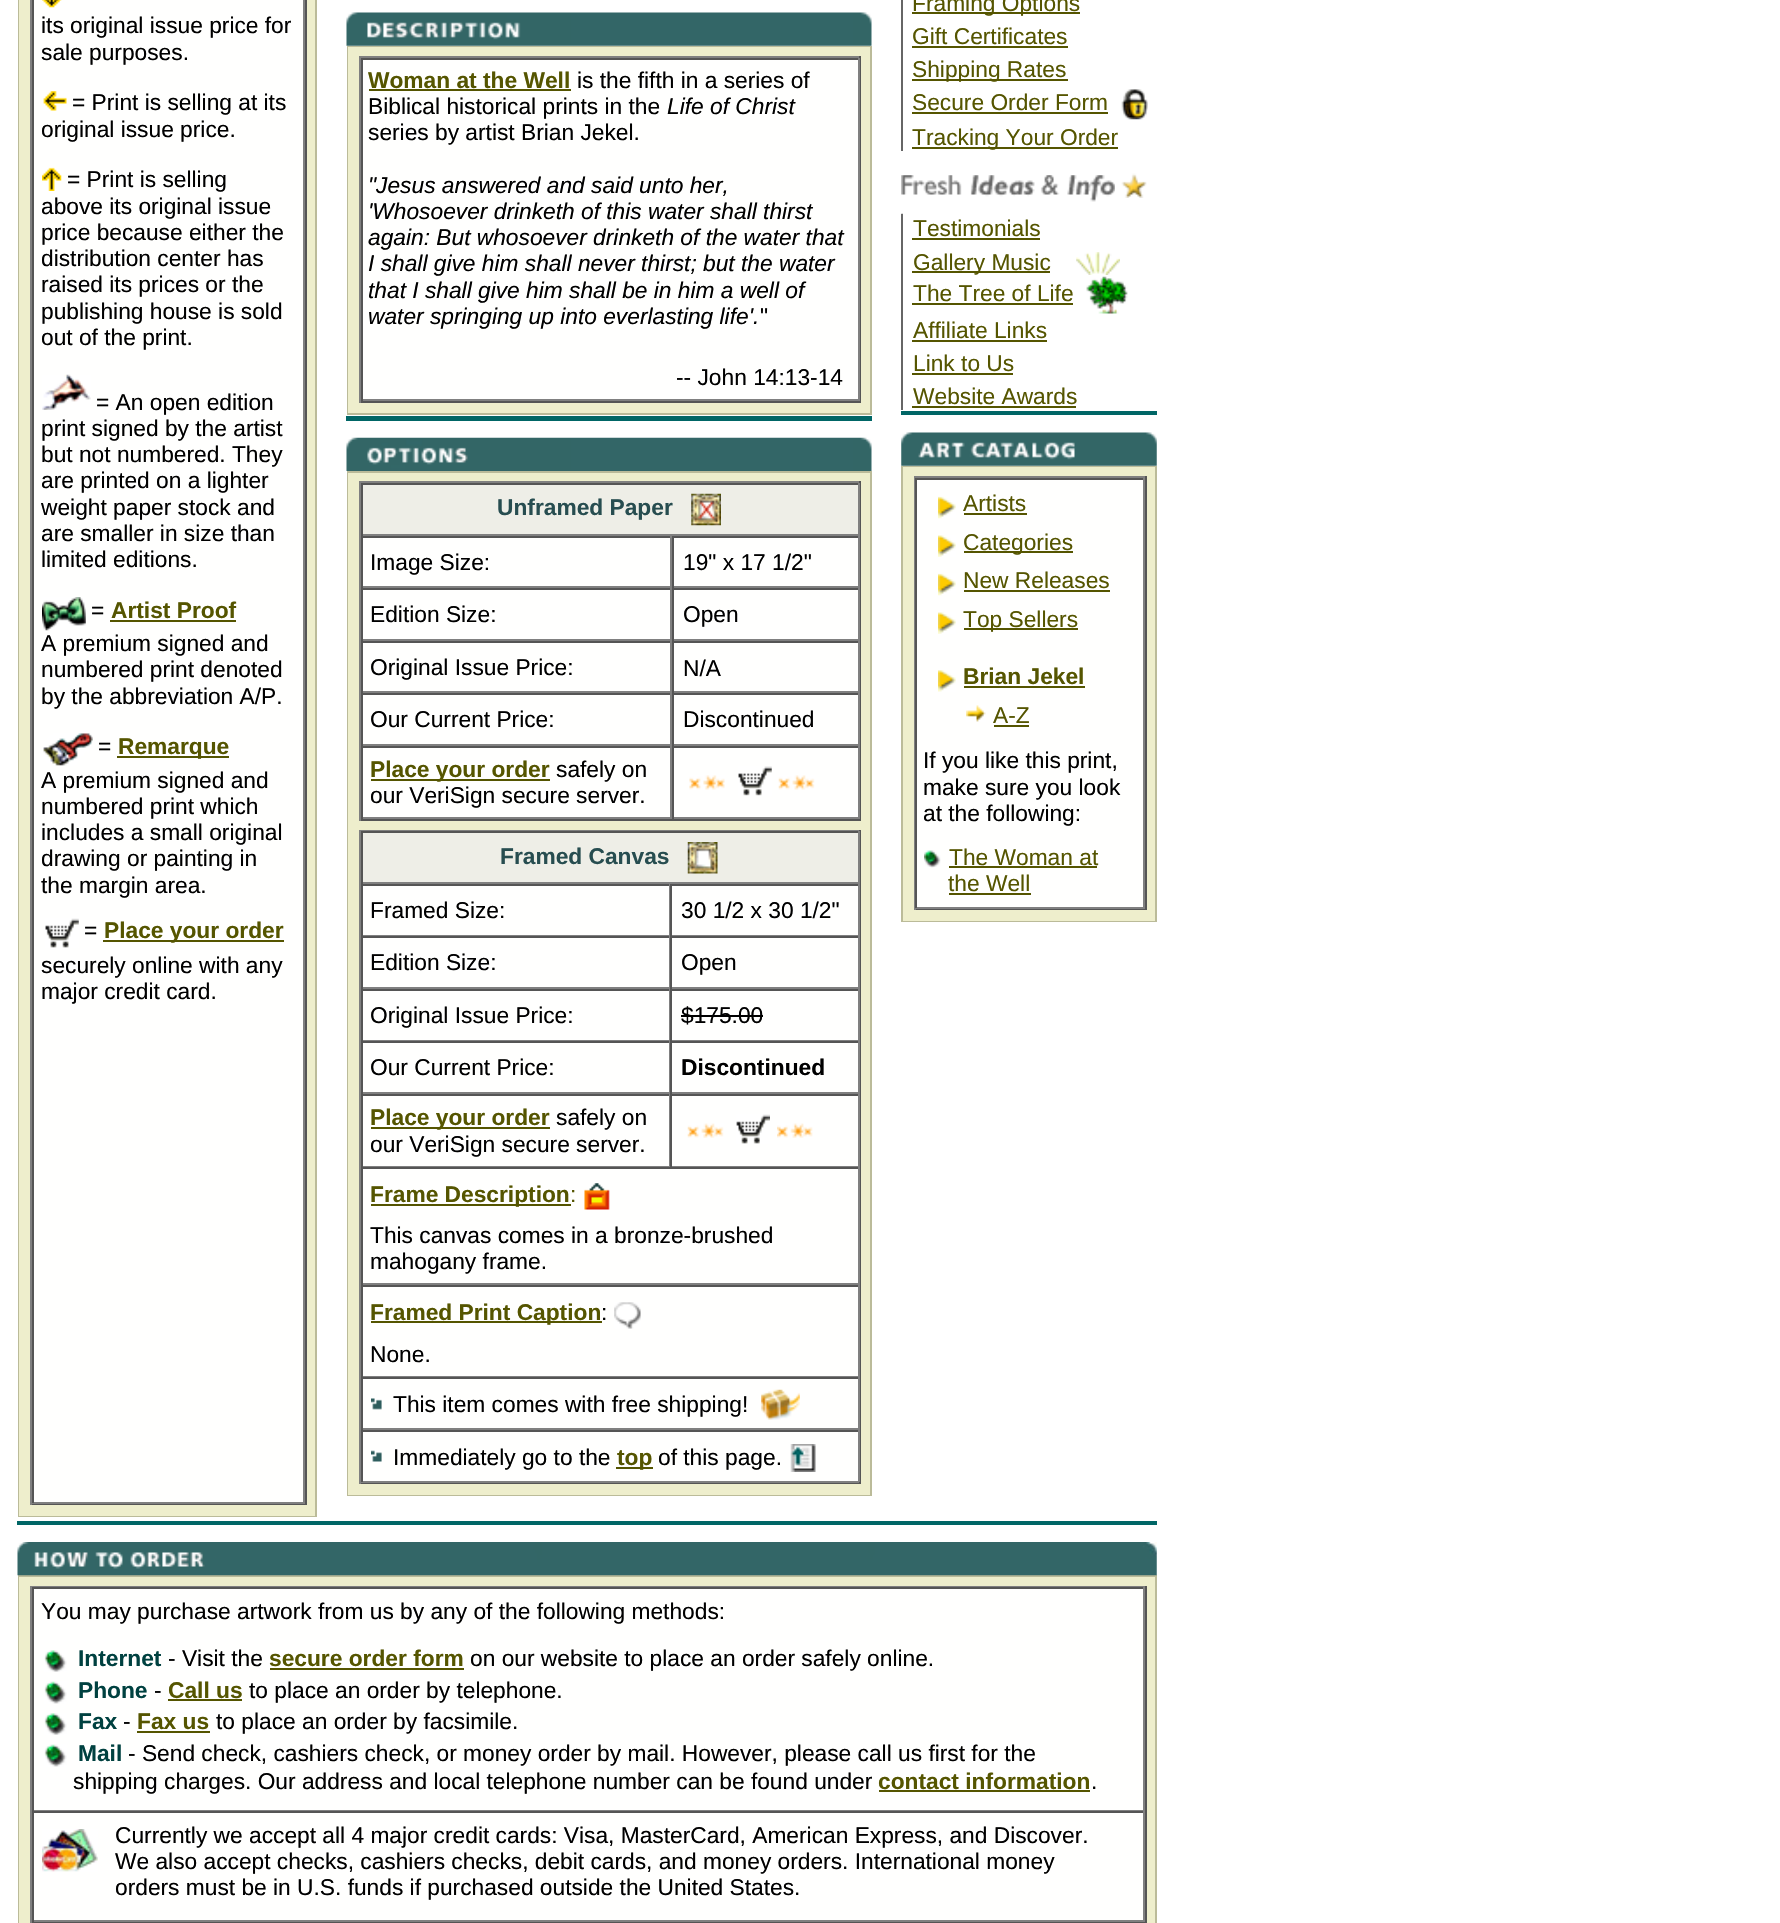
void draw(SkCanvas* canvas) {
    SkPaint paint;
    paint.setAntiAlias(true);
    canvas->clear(0xFFFFFFFF);
    paint.setColor(0xFFBBBB99);
    canvas->drawRect(SkRect::MakeXYWH(18, 0, 299, 1517), paint);
    paint.setColor(0xFFEEEECC);
    canvas->drawRect(SkRect::MakeXYWH(19, 0, 296, 1516), paint);
    paint.setColor(0xFFFFFFFE);
    canvas->drawRect(SkRect::MakeXYWH(34, 0, 269, 1502), paint);
    paint.setColor(0xFF555555);
    canvas->drawRect(SkRect::MakeXYWH(305, 0, 2, 1505), paint);
    canvas->drawRect(SkRect::MakeXYWH(30, 1503, 276, 2), paint);
    paint.setColor(0xFF808080);
    canvas->drawRect(SkRect::MakeXYWH(30, 0, 2, 1505), paint);
    canvas->drawRect(SkRect::MakeXYWH(303, 0, 2, 1503), paint);
    canvas->drawRect(SkRect::MakeXYWH(32, 1502, 273, 2), paint);
    paint.setColor(0xFF555555);
    canvas->drawRect(SkRect::MakeXYWH(32, 0, 2, 1503), paint);
    canvas->drawImageRect(SkImages::DeferredFromEncodedData(SkData::MakeFromFileName("img1.png")), SkRect::MakeXYWH(42, 0, 20, 8), SkSamplingOptions());
    SkFont font1(fontMgr->matchFamilyStyle("Liberation Sans", SkFontStyle::Normal()), 22.75f);
    font1.setSubpixel(true);
    paint.setColor(0xFF000000);
    canvas->drawString("its original issue price for", 41, 33, font1, paint);
    canvas->drawString("sale purposes.", 41, 60, font1, paint);
    canvas->drawImageRect(SkImages::DeferredFromEncodedData(SkData::MakeFromFileName("img2.png")), SkRect::MakeXYWH(43, 91, 24, 20), SkSamplingOptions());
    canvas->drawString("= Print is selling at its", 72, 110, font1, paint);
    canvas->drawString("original issue price.", 41, 137, font1, paint);
    canvas->drawImageRect(SkImages::DeferredFromEncodedData(SkData::MakeFromFileName("img3.png")), SkRect::MakeXYWH(42, 167, 20, 24), SkSamplingOptions());
    canvas->drawString("= Print is selling", 67, 187, font1, paint);
    canvas->drawString("above its original issue", 41, 214, font1, paint);
    canvas->drawString("price because either the", 41, 240, font1, paint);
    canvas->drawString("distribution center has", 41, 266, font1, paint);
    canvas->drawString("raised its prices or the", 41, 292, font1, paint);
    canvas->drawString("publishing house is sold", 41, 319, font1, paint);
    canvas->drawString("out of the print.", 41, 345, font1, paint);
    canvas->drawImageRect(SkImages::DeferredFromEncodedData(SkData::MakeFromFileName("img4.png")), SkRect::MakeXYWH(42, 374, 49, 36), SkSamplingOptions());
    canvas->drawString("= An open edition", 96, 410, font1, paint);
    canvas->drawString("print signed by the artist", 41, 436, font1, paint);
    canvas->drawString("but not numbered. They", 41, 462, font1, paint);
    canvas->drawString("are printed on a lighter", 41, 488, font1, paint);
    canvas->drawString("weight paper stock and", 41, 515, font1, paint);
    canvas->drawString("are smaller in size than", 41, 541, font1, paint);
    canvas->drawString("limited editions.", 41, 567, font1, paint);
    canvas->drawImageRect(SkImages::DeferredFromEncodedData(SkData::MakeFromFileName("img5.png")), SkRect::MakeXYWH(42, 597, 44, 34), SkSamplingOptions());
    canvas->drawString("=", 91, 618, font1, paint);
    SkFont font2(fontMgr->matchFamilyStyle("Liberation Sans", SkFontStyle::Bold()), 22.75f);
    font2.setSubpixel(true);
    paint.setColor(0xFF555500);
    canvas->drawString("Artist Proof", 111, 618, font2, paint);
    canvas->drawRect(SkRect::MakeXYWH(110, 620, 126, 2), paint);
    paint.setColor(0xFF000000);
    canvas->drawString("A premium signed and", 41, 651, font1, paint);
    canvas->drawString("numbered print denoted", 41, 677, font1, paint);
    canvas->drawString("by the abbreviation A/P.", 41, 704, font1, paint);
    canvas->drawImageRect(SkImages::DeferredFromEncodedData(SkData::MakeFromFileName("img6.png")), SkRect::MakeXYWH(43, 733, 50, 33), SkSamplingOptions());
    canvas->drawString("=", 98, 754, font1, paint);
    paint.setColor(0xFF555500);
    canvas->drawRect(SkRect::MakeXYWH(117, 756, 112, 2), paint);
    canvas->drawString("Remarque", 118, 754, font2, paint);
    paint.setColor(0xFF000000);
    canvas->drawString("A premium signed and", 41, 788, font1, paint);
    canvas->drawString("numbered print which", 41, 814, font1, paint);
    canvas->drawString("includes a small original", 41, 840, font1, paint);
    canvas->drawString("drawing or painting in", 41, 866, font1, paint);
    canvas->drawString("the margin area.", 41, 893, font1, paint);
    canvas->drawImageRect(SkImages::DeferredFromEncodedData(SkData::MakeFromFileName("img7.png")), SkRect::MakeXYWH(45, 918, 34, 30), SkSamplingOptions());
    canvas->drawString("=", 84, 938, font1, paint);
    paint.setColor(0xFF555500);
    canvas->drawRect(SkRect::MakeXYWH(103, 940, 181, 2), paint);
    canvas->drawString("Place your order", 104, 938, font2, paint);
    paint.setColor(0xFF000000);
    canvas->drawString("securely online with any", 41, 973, font1, paint);
    canvas->drawString("major credit card.", 41, 999, font1, paint);
    canvas->drawImageRect(SkImages::DeferredFromEncodedData(SkData::MakeFromFileName("img8.png")), SkRect::MakeXYWH(346, 12, 526, 34), SkSamplingOptions());
    paint.setColor(0xFFBBBB99);
    canvas->drawRect(SkRect::MakeXYWH(347, 46, 525, 369), paint);
    paint.setColor(0xFFEEEECC);
    canvas->drawRect(SkRect::MakeXYWH(348, 47, 522, 366), paint);
    paint.setColor(0xFFFFFFFE);
    canvas->drawRect(SkRect::MakeXYWH(363, 60, 495, 339), paint);
    paint.setColor(0xFF808080);
    canvas->drawRect(SkRect::MakeXYWH(359, 56, 502, 2), paint);
    paint.setColor(0xFF555555);
    canvas->drawRect(SkRect::MakeXYWH(859, 56, 2, 347), paint);
    canvas->drawRect(SkRect::MakeXYWH(359, 401, 502, 2), paint);
    paint.setColor(0xFF808080);
    canvas->drawRect(SkRect::MakeXYWH(359, 56, 2, 347), paint);
    paint.setColor(0xFF555555);
    canvas->drawRect(SkRect::MakeXYWH(361, 58, 498, 2), paint);
    paint.setColor(0xFF808080);
    canvas->drawRect(SkRect::MakeXYWH(858, 58, 2, 343), paint);
    canvas->drawRect(SkRect::MakeXYWH(361, 399, 498, 2), paint);
    paint.setColor(0xFF555555);
    canvas->drawRect(SkRect::MakeXYWH(361, 58, 2, 343), paint);
    paint.setColor(0xFF555500);
    canvas->drawString("Woman at the Well", 368, 88, font2, paint);
    canvas->drawRect(SkRect::MakeXYWH(369, 89, 202, 2), paint);
    paint.setColor(0xFF000000);
    canvas->drawString("is the fifth in a series of", 577, 88, font1, paint);
    canvas->drawString("Biblical historical prints in the", 368, 114, font1, paint);
    SkFont font3(fontMgr->matchFamilyStyle("Liberation Sans", SkFontStyle::Italic()), 22.75f);
    font3.setSubpixel(true);
    canvas->drawString("Life of Christ", 667, 114, font3, paint);
    canvas->drawString("series by artist Brian Jekel.", 368, 140, font1, paint);
    canvas->drawString("\"Jesus answered and said unto her,", 368, 193, font3, paint);
    canvas->drawString("'Whosoever drinketh of this water shall thirst", 368, 219, font3, paint);
    canvas->drawString("again: But whosoever drinketh of the water that", 368, 245, font3, paint);
    canvas->drawString("I shall give him shall never thirst; but the water", 368, 271, font3, paint);
    canvas->drawString("that I shall give him shall be in him a well of", 368, 298, font3, paint);
    canvas->drawString("water springing up into everlasting life'.", 368, 324, font3, paint);
    canvas->drawString("\"", 760, 324, font1, paint);
    canvas->drawString("-- John 14:13-14", 676, 385, font1, paint);
    paint.setColor(0xFF006666);
    canvas->drawRect(SkRect::MakeXYWH(346, 416, 526, 5), paint);
    canvas->drawImageRect(SkImages::DeferredFromEncodedData(SkData::MakeFromFileName("img9.png")), SkRect::MakeXYWH(346, 437, 526, 34), SkSamplingOptions());
    paint.setColor(0xFFBBBB99);
    canvas->drawRect(SkRect::MakeXYWH(347, 471, 525, 1025), paint);
    paint.setColor(0xFFEEEECC);
    canvas->drawRect(SkRect::MakeXYWH(348, 473, 522, 1022), paint);
    paint.setColor(0xFFFFFFFE);
    canvas->drawRect(SkRect::MakeXYWH(363, 538, 495, 279), paint);
    paint.setColor(0xFF808080);
    canvas->drawRect(SkRect::MakeXYWH(359, 481, 502, 2), paint);
    paint.setColor(0xFF555555);
    canvas->drawRect(SkRect::MakeXYWH(859, 481, 2, 340), paint);
    canvas->drawRect(SkRect::MakeXYWH(359, 819, 502, 2), paint);
    paint.setColor(0xFF808080);
    canvas->drawRect(SkRect::MakeXYWH(359, 481, 2, 340), paint);
    paint.setColor(0xFFEEEEE7);
    canvas->drawRect(SkRect::MakeXYWH(363, 485, 495, 49), paint);
    paint.setColor(0xFF555555);
    canvas->drawRect(SkRect::MakeXYWH(361, 483, 498, 2), paint);
    paint.setColor(0xFF808080);
    canvas->drawRect(SkRect::MakeXYWH(858, 483, 2, 53), paint);
    canvas->drawRect(SkRect::MakeXYWH(361, 534, 498, 2), paint);
    paint.setColor(0xFF555555);
    canvas->drawRect(SkRect::MakeXYWH(361, 483, 2, 53), paint);
    paint.setColor(0xFF274D50);
    canvas->drawString("Unframed Paper", 497, 515, font2, paint);
    canvas->drawImageRect(SkImages::DeferredFromEncodedData(SkData::MakeFromFileName("img10.png")), SkRect::MakeXYWH(691, 493, 30, 33), SkSamplingOptions());
    paint.setColor(0xFF555555);
    canvas->drawRect(SkRect::MakeXYWH(361, 536, 498, 2), paint);
    paint.setColor(0xFF808080);
    canvas->drawRect(SkRect::MakeXYWH(670, 536, 2, 52), paint);
    canvas->drawRect(SkRect::MakeXYWH(361, 586, 311, 2), paint);
    paint.setColor(0xFF555555);
    canvas->drawRect(SkRect::MakeXYWH(361, 536, 2, 52), paint);
    paint.setColor(0xFF000000);
    canvas->drawString("Image Size:", 370, 570, font1, paint);
    paint.setColor(0xFF808080);
    canvas->drawRect(SkRect::MakeXYWH(858, 536, 2, 52), paint);
    canvas->drawRect(SkRect::MakeXYWH(672, 586, 187, 2), paint);
    paint.setColor(0xFF555555);
    canvas->drawRect(SkRect::MakeXYWH(672, 536, 2, 52), paint);
    paint.setColor(0xFF000000);
    canvas->drawString("19\" x 17 1/2\"", 683, 570, font1, paint);
    paint.setColor(0xFF555555);
    canvas->drawRect(SkRect::MakeXYWH(361, 588, 498, 2), paint);
    paint.setColor(0xFF808080);
    canvas->drawRect(SkRect::MakeXYWH(670, 588, 2, 53), paint);
    canvas->drawRect(SkRect::MakeXYWH(361, 639, 311, 2), paint);
    paint.setColor(0xFF555555);
    canvas->drawRect(SkRect::MakeXYWH(361, 588, 2, 53), paint);
    paint.setColor(0xFF000000);
    canvas->drawString("Edition Size:", 370, 622, font1, paint);
    paint.setColor(0xFF808080);
    canvas->drawRect(SkRect::MakeXYWH(858, 588, 2, 53), paint);
    canvas->drawRect(SkRect::MakeXYWH(672, 639, 187, 2), paint);
    paint.setColor(0xFF555555);
    canvas->drawRect(SkRect::MakeXYWH(672, 588, 2, 53), paint);
    paint.setColor(0xFF000000);
    canvas->drawString("Open", 683, 622, font1, paint);
    paint.setColor(0xFF555555);
    canvas->drawRect(SkRect::MakeXYWH(361, 641, 498, 2), paint);
    paint.setColor(0xFF808080);
    canvas->drawRect(SkRect::MakeXYWH(670, 641, 2, 52), paint);
    canvas->drawRect(SkRect::MakeXYWH(361, 691, 311, 2), paint);
    paint.setColor(0xFF555555);
    canvas->drawRect(SkRect::MakeXYWH(361, 641, 2, 52), paint);
    paint.setColor(0xFF000000);
    canvas->drawString("Original Issue Price:", 370, 675, font1, paint);
    paint.setColor(0xFF808080);
    canvas->drawRect(SkRect::MakeXYWH(858, 641, 2, 52), paint);
    canvas->drawRect(SkRect::MakeXYWH(672, 691, 187, 2), paint);
    paint.setColor(0xFF555555);
    canvas->drawRect(SkRect::MakeXYWH(672, 641, 2, 52), paint);
    paint.setColor(0xFF000000);
    canvas->drawString("N/A", 683, 676, font1, paint);
    paint.setColor(0xFF555555);
    canvas->drawRect(SkRect::MakeXYWH(361, 693, 498, 2), paint);
    paint.setColor(0xFF808080);
    canvas->drawRect(SkRect::MakeXYWH(670, 693, 2, 53), paint);
    canvas->drawRect(SkRect::MakeXYWH(361, 744, 311, 2), paint);
    paint.setColor(0xFF555555);
    canvas->drawRect(SkRect::MakeXYWH(361, 693, 2, 53), paint);
    paint.setColor(0xFF000000);
    canvas->drawString("Our Current Price:", 370, 727, font1, paint);
    paint.setColor(0xFF808080);
    canvas->drawRect(SkRect::MakeXYWH(858, 693, 2, 53), paint);
    canvas->drawRect(SkRect::MakeXYWH(672, 744, 187, 2), paint);
    paint.setColor(0xFF555555);
    canvas->drawRect(SkRect::MakeXYWH(672, 693, 2, 53), paint);
    paint.setColor(0xFF000000);
    canvas->drawString("Discontinued", 683, 727, font1, paint);
    paint.setColor(0xFF555555);
    canvas->drawRect(SkRect::MakeXYWH(361, 746, 498, 2), paint);
    paint.setColor(0xFF808080);
    canvas->drawRect(SkRect::MakeXYWH(670, 746, 2, 73), paint);
    canvas->drawRect(SkRect::MakeXYWH(361, 817, 311, 2), paint);
    paint.setColor(0xFF555555);
    canvas->drawRect(SkRect::MakeXYWH(361, 746, 2, 73), paint);
    paint.setColor(0xFF555500);
    canvas->drawRect(SkRect::MakeXYWH(371, 779, 179, 2), paint);
    canvas->drawString("Place your order", 370, 777, font2, paint);
    paint.setColor(0xFF000000);
    canvas->drawString("safely on", 556, 777, font1, paint);
    canvas->drawString("our VeriSign secure server.", 370, 803, font1, paint);
    paint.setColor(0xFF808080);
    canvas->drawRect(SkRect::MakeXYWH(858, 746, 2, 73), paint);
    canvas->drawRect(SkRect::MakeXYWH(672, 817, 187, 2), paint);
    paint.setColor(0xFF555555);
    canvas->drawRect(SkRect::MakeXYWH(672, 746, 2, 73), paint);
    canvas->drawImageRect(SkImages::DeferredFromEncodedData(SkData::MakeFromFileName("img11.png")), SkRect::MakeXYWH(689, 775, 36, 15), SkSamplingOptions());
    canvas->drawImageRect(SkImages::DeferredFromEncodedData(SkData::MakeFromFileName("img12.png")), SkRect::MakeXYWH(738, 766, 34, 30), SkSamplingOptions());
    canvas->drawImageRect(SkImages::DeferredFromEncodedData(SkData::MakeFromFileName("img13.png")), SkRect::MakeXYWH(778, 775, 37, 15), SkSamplingOptions());
    paint.setColor(0xFFFFFFFE);
    canvas->drawRect(SkRect::MakeXYWH(363, 886, 495, 595), paint);
    paint.setColor(0xFF808080);
    canvas->drawRect(SkRect::MakeXYWH(359, 830, 502, 1), paint);
    paint.setColor(0xFF555555);
    canvas->drawRect(SkRect::MakeXYWH(859, 830, 2, 654), paint);
    canvas->drawRect(SkRect::MakeXYWH(359, 1482, 502, 2), paint);
    paint.setColor(0xFF808080);
    canvas->drawRect(SkRect::MakeXYWH(359, 830, 2, 654), paint);
    paint.setColor(0xFFEEEEE7);
    canvas->drawRect(SkRect::MakeXYWH(363, 833, 495, 49), paint);
    paint.setColor(0xFF555555);
    canvas->drawRect(SkRect::MakeXYWH(361, 831, 498, 2), paint);
    paint.setColor(0xFF808080);
    canvas->drawRect(SkRect::MakeXYWH(858, 831, 2, 53), paint);
    canvas->drawRect(SkRect::MakeXYWH(361, 882, 498, 2), paint);
    paint.setColor(0xFF555555);
    canvas->drawRect(SkRect::MakeXYWH(361, 831, 2, 53), paint);
    paint.setColor(0xFF274D50);
    canvas->drawString("Framed Canvas", 500, 864, font2, paint);
    canvas->drawImageRect(SkImages::DeferredFromEncodedData(SkData::MakeFromFileName("img14.png")), SkRect::MakeXYWH(687, 842, 31, 32), SkSamplingOptions());
    paint.setColor(0xFF555555);
    canvas->drawRect(SkRect::MakeXYWH(361, 884, 498, 2), paint);
    paint.setColor(0xFF808080);
    canvas->drawRect(SkRect::MakeXYWH(669, 884, 1, 52), paint);
    canvas->drawRect(SkRect::MakeXYWH(361, 935, 309, 1), paint);
    paint.setColor(0xFF555555);
    canvas->drawRect(SkRect::MakeXYWH(361, 884, 2, 52), paint);
    paint.setColor(0xFF000000);
    canvas->drawString("Framed Size:", 370, 918, font1, paint);
    paint.setColor(0xFF808080);
    canvas->drawRect(SkRect::MakeXYWH(858, 884, 2, 52), paint);
    canvas->drawRect(SkRect::MakeXYWH(670, 935, 189, 1), paint);
    paint.setColor(0xFF555555);
    canvas->drawRect(SkRect::MakeXYWH(670, 884, 2, 52), paint);
    paint.setColor(0xFF000000);
    canvas->drawString("30 1/2 x 30 1/2\"", 681, 918, font1, paint);
    paint.setColor(0xFF555555);
    canvas->drawRect(SkRect::MakeXYWH(361, 936, 498, 2), paint);
    paint.setColor(0xFF808080);
    canvas->drawRect(SkRect::MakeXYWH(669, 936, 1, 53), paint);
    canvas->drawRect(SkRect::MakeXYWH(361, 987, 309, 2), paint);
    paint.setColor(0xFF555555);
    canvas->drawRect(SkRect::MakeXYWH(361, 936, 2, 53), paint);
    paint.setColor(0xFF000000);
    canvas->drawString("Edition Size:", 370, 970, font1, paint);
    paint.setColor(0xFF808080);
    canvas->drawRect(SkRect::MakeXYWH(858, 936, 2, 53), paint);
    canvas->drawRect(SkRect::MakeXYWH(670, 987, 189, 2), paint);
    paint.setColor(0xFF555555);
    canvas->drawRect(SkRect::MakeXYWH(670, 936, 2, 53), paint);
    paint.setColor(0xFF000000);
    canvas->drawString("Open", 681, 970, font1, paint);
    paint.setColor(0xFF555555);
    canvas->drawRect(SkRect::MakeXYWH(361, 989, 498, 2), paint);
    paint.setColor(0xFF808080);
    canvas->drawRect(SkRect::MakeXYWH(669, 989, 1, 52), paint);
    canvas->drawRect(SkRect::MakeXYWH(361, 1040, 309, 1), paint);
    paint.setColor(0xFF555555);
    canvas->drawRect(SkRect::MakeXYWH(361, 989, 2, 52), paint);
    paint.setColor(0xFF000000);
    canvas->drawString("Original Issue Price:", 370, 1023, font1, paint);
    paint.setColor(0xFF808080);
    canvas->drawRect(SkRect::MakeXYWH(858, 989, 2, 52), paint);
    canvas->drawRect(SkRect::MakeXYWH(670, 1040, 189, 1), paint);
    paint.setColor(0xFF555555);
    canvas->drawRect(SkRect::MakeXYWH(670, 989, 2, 52), paint);
    paint.setColor(0xFF000000);
    canvas->drawString("$175.00", 681, 1023, font1, paint);
    canvas->drawRect(SkRect::MakeXYWH(681, 1015, 82, 2), paint);
    paint.setColor(0xFF555555);
    canvas->drawRect(SkRect::MakeXYWH(361, 1041, 498, 2), paint);
    paint.setColor(0xFF808080);
    canvas->drawRect(SkRect::MakeXYWH(669, 1041, 1, 53), paint);
    canvas->drawRect(SkRect::MakeXYWH(361, 1092, 309, 2), paint);
    paint.setColor(0xFF555555);
    canvas->drawRect(SkRect::MakeXYWH(361, 1041, 2, 53), paint);
    paint.setColor(0xFF000000);
    canvas->drawString("Our Current Price:", 370, 1075, font1, paint);
    paint.setColor(0xFF808080);
    canvas->drawRect(SkRect::MakeXYWH(858, 1041, 2, 53), paint);
    canvas->drawRect(SkRect::MakeXYWH(670, 1092, 189, 2), paint);
    paint.setColor(0xFF555555);
    canvas->drawRect(SkRect::MakeXYWH(670, 1041, 2, 53), paint);
    paint.setColor(0xFF000000);
    canvas->drawString("Discontinued", 681, 1075, font2, paint);
    paint.setColor(0xFF555555);
    canvas->drawRect(SkRect::MakeXYWH(361, 1094, 498, 2), paint);
    paint.setColor(0xFF808080);
    canvas->drawRect(SkRect::MakeXYWH(669, 1094, 1, 73), paint);
    canvas->drawRect(SkRect::MakeXYWH(361, 1166, 309, 1), paint);
    paint.setColor(0xFF555555);
    canvas->drawRect(SkRect::MakeXYWH(361, 1094, 2, 73), paint);
    paint.setColor(0xFF555500);
    canvas->drawRect(SkRect::MakeXYWH(371, 1127, 179, 2), paint);
    canvas->drawString("Place your order", 370, 1125, font2, paint);
    paint.setColor(0xFF000000);
    canvas->drawString("safely on", 556, 1125, font1, paint);
    canvas->drawString("our VeriSign secure server.", 370, 1152, font1, paint);
    paint.setColor(0xFF808080);
    canvas->drawRect(SkRect::MakeXYWH(858, 1094, 2, 73), paint);
    canvas->drawRect(SkRect::MakeXYWH(670, 1166, 189, 1), paint);
    paint.setColor(0xFF555555);
    canvas->drawRect(SkRect::MakeXYWH(670, 1094, 2, 73), paint);
    canvas->drawImageRect(SkImages::DeferredFromEncodedData(SkData::MakeFromFileName("img15.png")), SkRect::MakeXYWH(687, 1123, 37, 15), SkSamplingOptions());
    canvas->drawImageRect(SkImages::DeferredFromEncodedData(SkData::MakeFromFileName("img16.png")), SkRect::MakeXYWH(736, 1114, 34, 30), SkSamplingOptions());
    canvas->drawImageRect(SkImages::DeferredFromEncodedData(SkData::MakeFromFileName("img17.png")), SkRect::MakeXYWH(777, 1123, 36, 15), SkSamplingOptions());
    canvas->drawRect(SkRect::MakeXYWH(361, 1167, 498, 2), paint);
    paint.setColor(0xFF808080);
    canvas->drawRect(SkRect::MakeXYWH(858, 1167, 2, 118), paint);
    canvas->drawRect(SkRect::MakeXYWH(361, 1283, 498, 2), paint);
    paint.setColor(0xFF555555);
    canvas->drawRect(SkRect::MakeXYWH(361, 1167, 2, 118), paint);
    paint.setColor(0xFF555500);
    canvas->drawRect(SkRect::MakeXYWH(371, 1204, 200, 2), paint);
    canvas->drawString("Frame Description", 370, 1202, font2, paint);
    canvas->drawString(":", 570, 1202, font1, paint);
    canvas->drawImageRect(SkImages::DeferredFromEncodedData(SkData::MakeFromFileName("img18.png")), SkRect::MakeXYWH(584, 1183, 26, 27), SkSamplingOptions());
    paint.setColor(0xFF000000);
    canvas->drawString("This canvas comes in a bronze-brushed", 370, 1243, font1, paint);
    canvas->drawString("mahogany frame.", 370, 1269, font1, paint);
    paint.setColor(0xFF555555);
    canvas->drawRect(SkRect::MakeXYWH(361, 1285, 498, 2), paint);
    paint.setColor(0xFF808080);
    canvas->drawRect(SkRect::MakeXYWH(858, 1285, 2, 92), paint);
    canvas->drawRect(SkRect::MakeXYWH(361, 1376, 498, 1), paint);
    paint.setColor(0xFF555555);
    canvas->drawRect(SkRect::MakeXYWH(361, 1285, 2, 92), paint);
    paint.setColor(0xFF555500);
    canvas->drawRect(SkRect::MakeXYWH(371, 1321, 231, 2), paint);
    canvas->drawString("Framed Print Caption", 370, 1320, font2, paint);
    paint.setColor(0xFF000000);
    canvas->drawString(":", 601, 1320, font1, paint);
    canvas->drawImageRect(SkImages::DeferredFromEncodedData(SkData::MakeFromFileName("img19.png")), SkRect::MakeXYWH(614, 1302, 27, 27), SkSamplingOptions());
    canvas->drawString("None.", 370, 1362, font1, paint);
    paint.setColor(0xFF555555);
    canvas->drawRect(SkRect::MakeXYWH(361, 1377, 498, 2), paint);
    paint.setColor(0xFF808080);
    canvas->drawRect(SkRect::MakeXYWH(858, 1377, 2, 53), paint);
    canvas->drawRect(SkRect::MakeXYWH(361, 1428, 498, 2), paint);
    paint.setColor(0xFF555555);
    canvas->drawRect(SkRect::MakeXYWH(361, 1377, 2, 53), paint);
    canvas->drawImageRect(SkImages::DeferredFromEncodedData(SkData::MakeFromFileName("img20.png")), SkRect::MakeXYWH(371, 1398, 11, 12), SkSamplingOptions());
    paint.setColor(0xFF000000);
    canvas->drawString("This item comes with free shipping!", 393, 1412, font1, paint);
    canvas->drawImageRect(SkImages::DeferredFromEncodedData(SkData::MakeFromFileName("img21.png")), SkRect::MakeXYWH(761, 1389, 39, 31), SkSamplingOptions());
    paint.setColor(0xFF555555);
    canvas->drawRect(SkRect::MakeXYWH(361, 1430, 498, 2), paint);
    paint.setColor(0xFF808080);
    canvas->drawRect(SkRect::MakeXYWH(858, 1430, 2, 52), paint);
    canvas->drawRect(SkRect::MakeXYWH(361, 1481, 498, 2), paint);
    paint.setColor(0xFF555555);
    canvas->drawRect(SkRect::MakeXYWH(361, 1430, 2, 52), paint);
    canvas->drawImageRect(SkImages::DeferredFromEncodedData(SkData::MakeFromFileName("img22.png")), SkRect::MakeXYWH(371, 1450, 11, 12), SkSamplingOptions());
    paint.setColor(0xFF000000);
    canvas->drawString("Immediately go to the", 393, 1465, font1, paint);
    paint.setColor(0xFF555500);
    canvas->drawRect(SkRect::MakeXYWH(616, 1467, 37, 2), paint);
    canvas->drawString("top", 617, 1465, font2, paint);
    paint.setColor(0xFF000000);
    canvas->drawString("of this page.", 658, 1465, font1, paint);
    canvas->drawImageRect(SkImages::DeferredFromEncodedData(SkData::MakeFromFileName("img23.png")), SkRect::MakeXYWH(790, 1444, 26, 28), SkSamplingOptions());
    paint.setColor(0xFF666666);
    canvas->drawRect(SkRect::MakeXYWH(901, 0, 2, 151), paint);
    paint.setColor(0xFF555500);
    canvas->drawRect(SkRect::MakeXYWH(912, 12, 168, 2), paint);
    canvas->drawString("Framing Options", 912, 11, font1, paint);
    canvas->drawString("Gift Certificates", 912, 44, font1, paint);
    canvas->drawRect(SkRect::MakeXYWH(912, 46, 156, 2), paint);
    canvas->drawRect(SkRect::MakeXYWH(912, 79, 156, 2), paint);
    canvas->drawString("Shipping Rates", 912, 77, font1, paint);
    canvas->drawString("Secure Order Form", 912, 110, font1, paint);
    canvas->drawRect(SkRect::MakeXYWH(912, 112, 196, 2), paint);
    canvas->drawImageRect(SkImages::DeferredFromEncodedData(SkData::MakeFromFileName("img24.png")), SkRect::MakeXYWH(1121, 89, 27, 31), SkSamplingOptions());
    canvas->drawRect(SkRect::MakeXYWH(912, 147, 206, 2), paint);
    canvas->drawString("Tracking Your Order", 912, 145, font1, paint);
    canvas->drawImageRect(SkImages::DeferredFromEncodedData(SkData::MakeFromFileName("img25.png")), SkRect::MakeXYWH(901, 175, 214, 27), SkSamplingOptions());
    canvas->drawImageRect(SkImages::DeferredFromEncodedData(SkData::MakeFromFileName("img26.png")), SkRect::MakeXYWH(1121, 173, 26, 25), SkSamplingOptions());
    paint.setColor(0xFF666666);
    canvas->drawRect(SkRect::MakeXYWH(901, 214, 2, 196), paint);
    canvas->drawImageRect(SkImages::DeferredFromEncodedData(SkData::MakeFromFileName("img27.png")), SkRect::MakeXYWH(901, 213, 2, 1), SkSamplingOptions());
    paint.setColor(0xFF555500);
    canvas->drawString("Testimonials", 913, 236, font1, paint);
    canvas->drawRect(SkRect::MakeXYWH(912, 238, 128, 2), paint);
    canvas->drawRect(SkRect::MakeXYWH(912, 271, 138, 2), paint);
    canvas->drawString("Gallery Music", 913, 270, font1, paint);
    canvas->drawImageRect(SkImages::DeferredFromEncodedData(SkData::MakeFromFileName("img28.png")), SkRect::MakeXYWH(1076, 252, 44, 23), SkSamplingOptions());
    canvas->drawString("The Tree of Life", 913, 301, font1, paint);
    canvas->drawRect(SkRect::MakeXYWH(912, 303, 161, 2), paint);
    canvas->drawImageRect(SkImages::DeferredFromEncodedData(SkData::MakeFromFileName("img29.png")), SkRect::MakeXYWH(1086, 276, 42, 38), SkSamplingOptions());
    canvas->drawString("Affiliate Links", 913, 338, font1, paint);
    canvas->drawRect(SkRect::MakeXYWH(912, 340, 135, 2), paint);
    canvas->drawString("Link to Us", 913, 371, font1, paint);
    canvas->drawRect(SkRect::MakeXYWH(912, 373, 101, 2), paint);
    canvas->drawString("Website Awards", 913, 404, font1, paint);
    canvas->drawRect(SkRect::MakeXYWH(912, 406, 164, 2), paint);
    paint.setColor(0xFF006666);
    canvas->drawRect(SkRect::MakeXYWH(901, 411, 256, 4), paint);
    canvas->drawImageRect(SkImages::DeferredFromEncodedData(SkData::MakeFromFileName("img30.png")), SkRect::MakeXYWH(901, 432, 256, 34), SkSamplingOptions());
    paint.setColor(0xFFBBBB99);
    canvas->drawRect(SkRect::MakeXYWH(901, 466, 256, 456), paint);
    paint.setColor(0xFFEEEECC);
    canvas->drawRect(SkRect::MakeXYWH(903, 467, 252, 454), paint);
    paint.setColor(0xFF808080);
    canvas->drawRect(SkRect::MakeXYWH(914, 476, 232, 2), paint);
    paint.setColor(0xFF555555);
    canvas->drawRect(SkRect::MakeXYWH(1145, 476, 2, 434), paint);
    canvas->drawRect(SkRect::MakeXYWH(914, 908, 232, 2), paint);
    paint.setColor(0xFF808080);
    canvas->drawRect(SkRect::MakeXYWH(914, 476, 2, 434), paint);
    paint.setColor(0xFFFFFFFE);
    canvas->drawRect(SkRect::MakeXYWH(917, 480, 226, 427), paint);
    paint.setColor(0xFF555555);
    canvas->drawRect(SkRect::MakeXYWH(915, 478, 230, 2), paint);
    paint.setColor(0xFF808080);
    canvas->drawRect(SkRect::MakeXYWH(1143, 478, 2, 430), paint);
    canvas->drawRect(SkRect::MakeXYWH(915, 907, 230, 2), paint);
    paint.setColor(0xFF555555);
    canvas->drawRect(SkRect::MakeXYWH(915, 478, 2, 430), paint);
    canvas->drawImageRect(SkImages::DeferredFromEncodedData(SkData::MakeFromFileName("img31.png")), SkRect::MakeXYWH(938, 496, 18, 23), SkSamplingOptions());
    paint.setColor(0xFF555500);
    canvas->drawString("Artists", 963, 511, font1, paint);
    canvas->drawRect(SkRect::MakeXYWH(964, 513, 63, 2), paint);
    canvas->drawImageRect(SkImages::DeferredFromEncodedData(SkData::MakeFromFileName("img32.png")), SkRect::MakeXYWH(938, 535, 18, 22), SkSamplingOptions());
    canvas->drawRect(SkRect::MakeXYWH(964, 551, 109, 2), paint);
    canvas->drawString("Categories", 963, 550, font1, paint);
    canvas->drawImageRect(SkImages::DeferredFromEncodedData(SkData::MakeFromFileName("img31.png")), SkRect::MakeXYWH(938, 573, 18, 23), SkSamplingOptions());
    canvas->drawString("New Releases", 963, 588, font1, paint);
    canvas->drawRect(SkRect::MakeXYWH(964, 590, 146, 2), paint);
    canvas->drawImageRect(SkImages::DeferredFromEncodedData(SkData::MakeFromFileName("img32.png")), SkRect::MakeXYWH(938, 612, 18, 22), SkSamplingOptions());
    canvas->drawRect(SkRect::MakeXYWH(964, 628, 114, 2), paint);
    canvas->drawString("Top Sellers", 963, 627, font1, paint);
    canvas->drawImageRect(SkImages::DeferredFromEncodedData(SkData::MakeFromFileName("img33.png")), SkRect::MakeXYWH(938, 670, 18, 22), SkSamplingOptions());
    canvas->drawString("Brian Jekel", 963, 684, font2, paint);
    canvas->drawRect(SkRect::MakeXYWH(964, 686, 121, 2), paint);
    canvas->drawImageRect(SkImages::DeferredFromEncodedData(SkData::MakeFromFileName("img34.png")), SkRect::MakeXYWH(966, 705, 20, 17), SkSamplingOptions());
    canvas->drawString("A-Z", 993, 723, font1, paint);
    canvas->drawRect(SkRect::MakeXYWH(994, 725, 35, 2), paint);
    paint.setColor(0xFF000000);
    canvas->drawString("If you like this print,", 923, 768, font1, paint);
    canvas->drawString("make sure you look", 923, 795, font1, paint);
    canvas->drawString("at the following:", 923, 821, font1, paint);
    canvas->drawImageRect(SkImages::DeferredFromEncodedData(SkData::MakeFromFileName("img35.png")), SkRect::MakeXYWH(924, 850, 17, 18), SkSamplingOptions());
    paint.setColor(0xFF555500);
    canvas->drawString("The Woman at", 949, 865, font1, paint);
    canvas->drawRect(SkRect::MakeXYWH(949, 866, 148, 2), paint);
    canvas->drawString("the Well", 948, 891, font1, paint);
    canvas->drawRect(SkRect::MakeXYWH(949, 893, 82, 2), paint);
    paint.setColor(0xFF006666);
    canvas->drawRect(SkRect::MakeXYWH(17, 1521, 1140, 4), paint);
    paint.setColor(0xFFBBBB99);
    canvas->drawRect(SkRect::MakeXYWH(18, 1575, 1139, 348), paint);
    canvas->drawImageRect(SkImages::DeferredFromEncodedData(SkData::MakeFromFileName("img36.png")), SkRect::MakeXYWH(17, 1542, 1140, 34), SkSamplingOptions());
    paint.setColor(0xFFEEEECC);
    canvas->drawRect(SkRect::MakeXYWH(19, 1577, 1136, 346), paint);
    paint.setColor(0xFF808080);
    canvas->drawRect(SkRect::MakeXYWH(30, 1586, 1116, 1), paint);
    paint.setColor(0xFF555555);
    canvas->drawRect(SkRect::MakeXYWH(1145, 1586, 2, 337), paint);
    canvas->drawRect(SkRect::MakeXYWH(30, 1922, 1116, 1), paint);
    paint.setColor(0xFF808080);
    canvas->drawRect(SkRect::MakeXYWH(30, 1586, 2, 337), paint);
    paint.setColor(0xFFFFFFFE);
    canvas->drawRect(SkRect::MakeXYWH(34, 1589, 1109, 221), paint);
    paint.setColor(0xFF555555);
    canvas->drawRect(SkRect::MakeXYWH(32, 1587, 1113, 2), paint);
    paint.setColor(0xFF808080);
    canvas->drawRect(SkRect::MakeXYWH(1143, 1587, 2, 224), paint);
    canvas->drawRect(SkRect::MakeXYWH(32, 1810, 1113, 1), paint);
    paint.setColor(0xFF555555);
    canvas->drawRect(SkRect::MakeXYWH(32, 1587, 2, 224), paint);
    paint.setColor(0xFF000000);
    canvas->drawString("You may purchase artwork from us by any of the following methods:", 41, 1619, font1, paint);
    canvas->drawImageRect(SkImages::DeferredFromEncodedData(SkData::MakeFromFileName("img37.png")), SkRect::MakeXYWH(44, 1650, 23, 22), SkSamplingOptions());
    paint.setColor(0xFF004140);
    canvas->drawString("Internet", 78, 1666, font2, paint);
    paint.setColor(0xFF000000);
    canvas->drawString("- Visit the", 168, 1666, font1, paint);
    paint.setColor(0xFF555500);
    canvas->drawString("secure order form", 269, 1666, font2, paint);
    canvas->drawRect(SkRect::MakeXYWH(270, 1668, 194, 2), paint);
    paint.setColor(0xFF000000);
    canvas->drawString("on our website to place an order safely online.", 470, 1666, font1, paint);
    canvas->drawImageRect(SkImages::DeferredFromEncodedData(SkData::MakeFromFileName("img38.png")), SkRect::MakeXYWH(44, 1681, 23, 23), SkSamplingOptions());
    paint.setColor(0xFF004140);
    canvas->drawString("Phone", 78, 1698, font2, paint);
    paint.setColor(0xFF000000);
    canvas->drawString("-", 154, 1698, font1, paint);
    paint.setColor(0xFF555500);
    canvas->drawString("Call us", 168, 1698, font2, paint);
    canvas->drawRect(SkRect::MakeXYWH(168, 1699, 74, 2), paint);
    paint.setColor(0xFF000000);
    canvas->drawString("to place an order by telephone.", 249, 1698, font1, paint);
    canvas->drawImageRect(SkImages::DeferredFromEncodedData(SkData::MakeFromFileName("img37.png")), SkRect::MakeXYWH(44, 1713, 23, 22), SkSamplingOptions());
    paint.setColor(0xFF004140);
    canvas->drawString("Fax", 78, 1729, font2, paint);
    paint.setColor(0xFF000000);
    canvas->drawString("-", 123, 1729, font1, paint);
    paint.setColor(0xFF555500);
    canvas->drawString("Fax us", 137, 1729, font2, paint);
    canvas->drawRect(SkRect::MakeXYWH(137, 1731, 73, 2), paint);
    paint.setColor(0xFF000000);
    canvas->drawString("to place an order by facsimile.", 216, 1729, font1, paint);
    canvas->drawImageRect(SkImages::DeferredFromEncodedData(SkData::MakeFromFileName("img38.png")), SkRect::MakeXYWH(44, 1744, 23, 23), SkSamplingOptions());
    paint.setColor(0xFF004140);
    canvas->drawString("Mail", 78, 1761, font2, paint);
    paint.setColor(0xFF000000);
    canvas->drawString("- Send check, cashiers check, or money order by mail. However, please call us first for the", 128, 1761, font1, paint);
    canvas->drawString("shipping charges. Our address and local telephone number can be found under", 73, 1789, font1, paint);
    paint.setColor(0xFF555500);
    canvas->drawString("contact information", 878, 1789, font2, paint);
    paint.setColor(0xFF000000);
    canvas->drawString(".", 1091, 1789, font1, paint);
    paint.setColor(0xFF555500);
    canvas->drawRect(SkRect::MakeXYWH(879, 1790, 211, 2), paint);
    paint.setColor(0xFFFFFFFE);
    canvas->drawRect(SkRect::MakeXYWH(34, 1813, 1109, 107), paint);
    paint.setColor(0xFF555555);
    canvas->drawRect(SkRect::MakeXYWH(32, 1811, 1113, 2), paint);
    paint.setColor(0xFF808080);
    canvas->drawRect(SkRect::MakeXYWH(1143, 1811, 2, 111), paint);
    canvas->drawRect(SkRect::MakeXYWH(32, 1920, 1113, 2), paint);
    paint.setColor(0xFF555555);
    canvas->drawRect(SkRect::MakeXYWH(32, 1811, 2, 111), paint);
    canvas->drawImageRect(SkImages::DeferredFromEncodedData(SkData::MakeFromFileName("img39.png")), SkRect::MakeXYWH(42, 1829, 56, 43), SkSamplingOptions());
    paint.setColor(0xFF000000);
    canvas->drawString("Currently we accept all 4 major credit cards: Visa, MasterCard, American Express, and Discover.", 115, 1843, font1, paint);
    canvas->drawString("We also accept checks, cashiers checks, debit cards, and money orders. International money", 115, 1869, font1, paint);
    canvas->drawString("orders must be in U.S. funds if purchased outside the United States.", 115, 1895, font1, paint);
}
